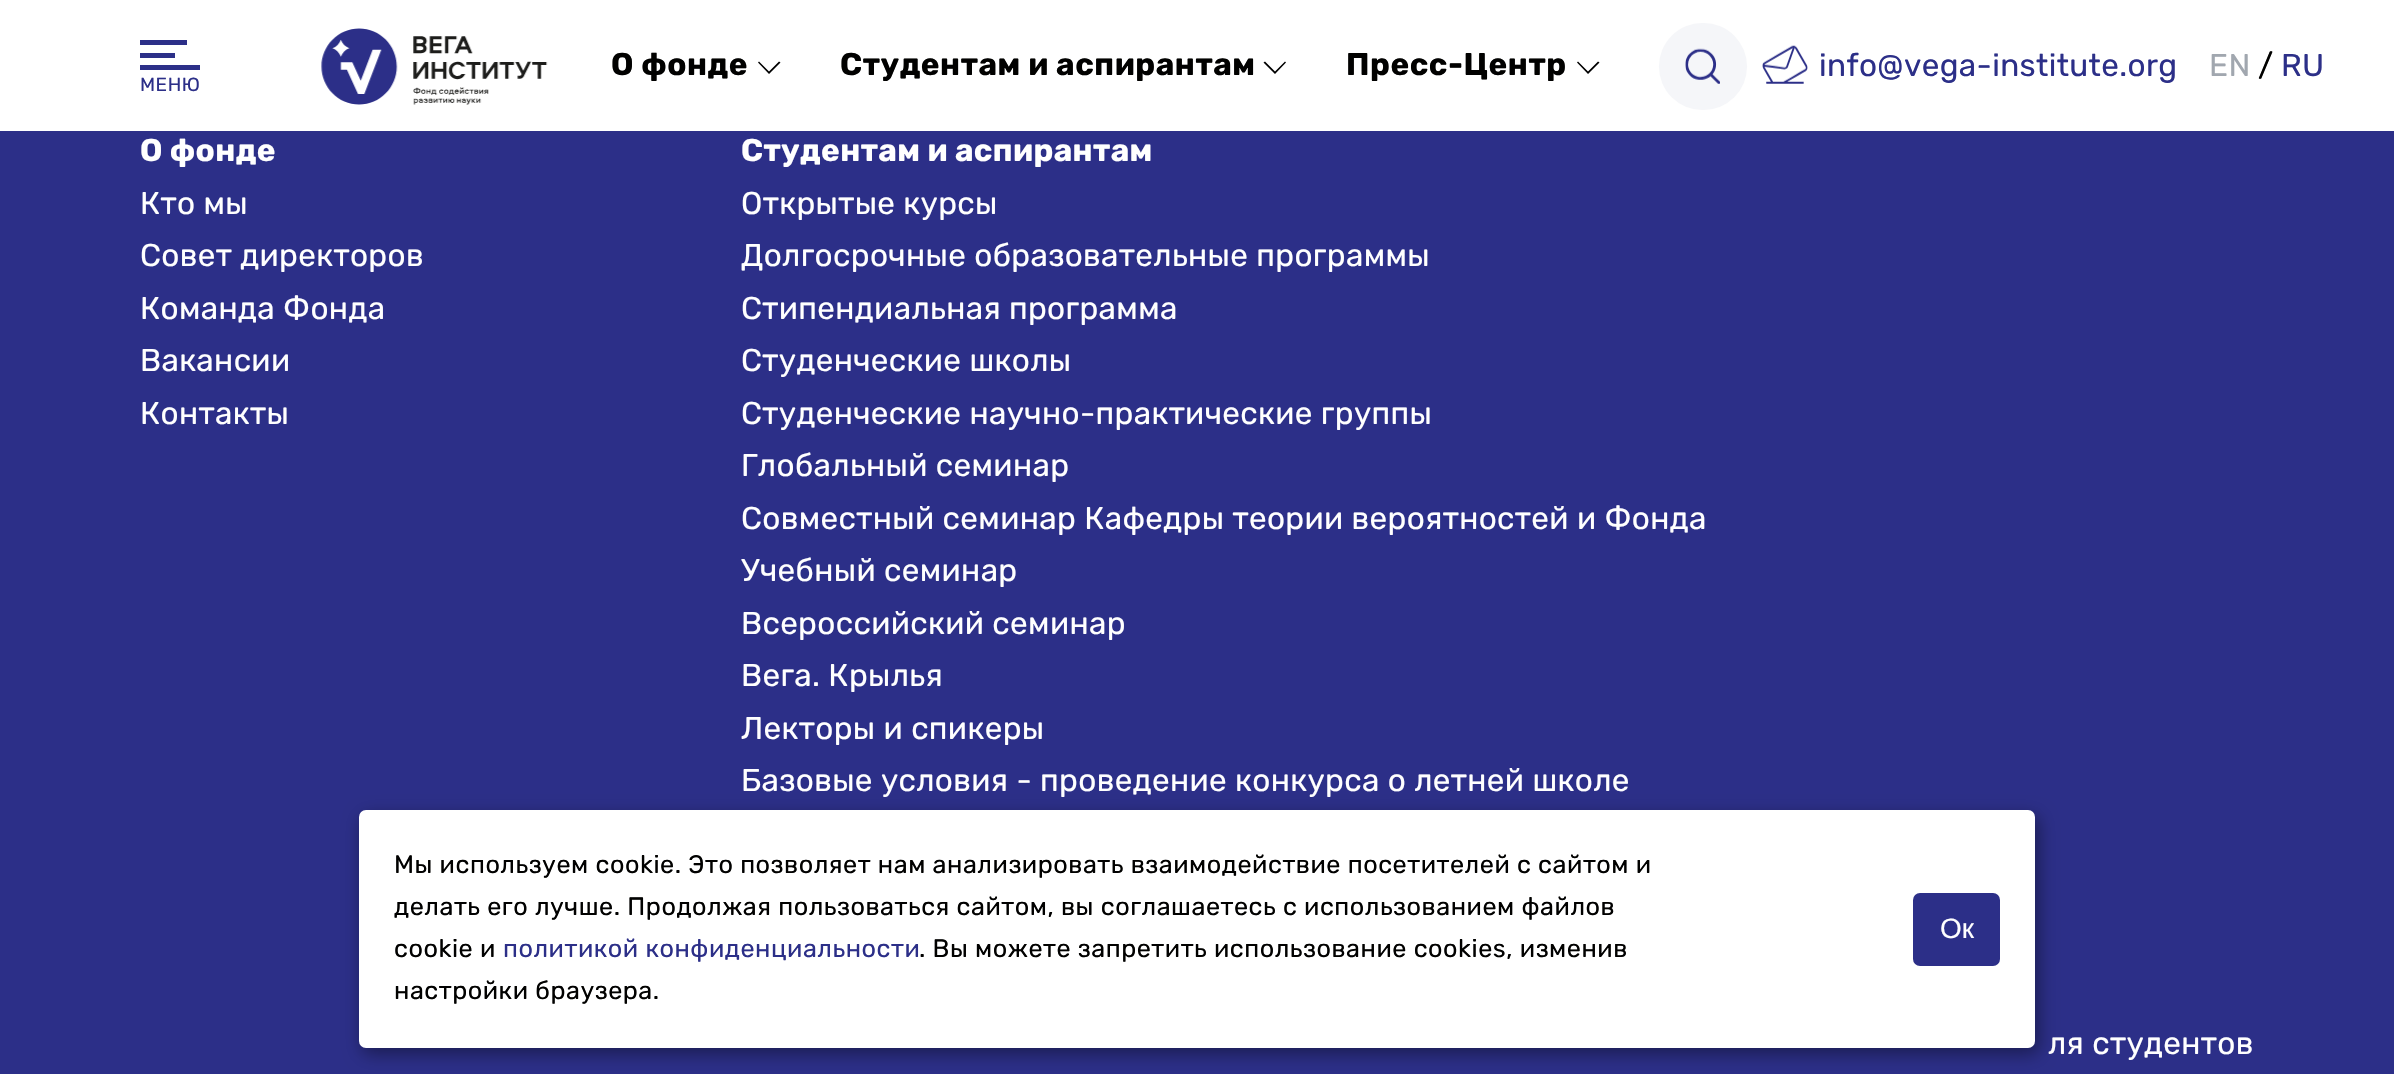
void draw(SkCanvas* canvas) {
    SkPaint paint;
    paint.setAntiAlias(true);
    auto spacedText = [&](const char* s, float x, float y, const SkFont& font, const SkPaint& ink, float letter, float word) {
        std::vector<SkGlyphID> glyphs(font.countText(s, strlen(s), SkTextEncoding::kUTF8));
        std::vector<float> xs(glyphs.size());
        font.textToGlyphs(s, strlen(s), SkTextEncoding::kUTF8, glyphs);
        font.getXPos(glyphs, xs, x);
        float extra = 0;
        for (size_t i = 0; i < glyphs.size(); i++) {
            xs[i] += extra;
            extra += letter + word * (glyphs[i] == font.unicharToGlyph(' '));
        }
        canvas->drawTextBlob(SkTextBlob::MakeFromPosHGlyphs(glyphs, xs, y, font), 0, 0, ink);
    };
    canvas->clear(0xFF2C2F88);
    paint.setColor(0xFFFFFFFF);
    canvas->drawRect(SkRect::MakeXYWH(0, 0, 2394, 131), paint);
    SkFont font1(fontMgr->matchFamilyStyle("Rubik", SkFontStyle::Bold()), 31.5f);
    font1.setSubpixel(true);
    paint.setColor(0xFF010100);
    spacedText("О фонде", 611, 75, font1, paint, 0.53f, 0);
    paint.setColor(0xFF000000);
    canvas->drawPath(SkPathBuilder().moveTo(759, 61.5f).lineTo(769, 71.5f).lineTo(779, 61.5f).lineTo(780.5f, 62.5f).lineTo(769, 74).lineTo(758, 62.5f).close().detach(), paint);
    paint.setColor(0xFF010100);
    spacedText("Студентам и аспирантам", 840, 75, font1, paint, 0.53f, 0);
    paint.setColor(0xFF000000);
    canvas->drawPath(SkPathBuilder().moveTo(1265, 61.5f).lineTo(1275, 71.5f).lineTo(1285, 61.5f).lineTo(1286, 62.5f).lineTo(1275, 74).lineTo(1263.5f, 62.5f).close().detach(), paint);
    paint.setColor(0xFF010100);
    spacedText("Пресс-Центр", 1346, 75, font1, paint, 0.53f, 0);
    paint.setColor(0xFF000000);
    canvas->drawPath(SkPathBuilder().moveTo(1578, 61.5f).lineTo(1588, 71.5f).lineTo(1598, 61.5f).lineTo(1599.5f, 62.5f).lineTo(1588, 74).lineTo(1577, 62.5f).close().detach(), paint);
    paint.setColor(0xFFF5F6F9);
    canvas->drawRoundRect(SkRect::MakeXYWH(1659, 23, 88, 87), 43.5f, 43.5f, paint);
    canvas->drawImageRect(SkImages::DeferredFromEncodedData(SkData::MakeFromFileName("img1.png")), SkRect::MakeXYWH(1685, 48, 35, 36), SkSamplingOptions());
    canvas->drawImageRect(SkImages::DeferredFromEncodedData(SkData::MakeFromFileName("img2.png")), SkRect::MakeXYWH(1762, 45, 46, 39), SkSamplingOptions());
    SkFont font2(fontMgr->matchFamilyStyle("Rubik", SkFontStyle::Normal()), 31.5f);
    font2.setSubpixel(true);
    paint.setColor(0xFF2C2F88);
    spacedText("info@vega-institute.org", 1819, 76, font2, paint, 0.35f, 0);
    paint.setColor(0xFFA1A7AF);
    spacedText("EN", 2209, 76, font2, paint, 0.35f, 0);
    paint.setColor(0xFF010100);
    spacedText("/", 2258, 76, font2, paint, 0.35f, 0);
    paint.setColor(0xFF2C2F88);
    spacedText("RU", 2281, 76, font2, paint, 0.35f, 0);
    canvas->drawRect(SkRect::MakeXYWH(140, 40, 47, 5), paint);
    canvas->drawRect(SkRect::MakeXYWH(140, 53, 35, 5), paint);
    canvas->drawRect(SkRect::MakeXYWH(140, 65, 60, 5), paint);
    SkFont font3(fontMgr->matchFamilyStyle("Rubik", SkFontStyle::Normal()), 19);
    font3.setSubpixel(true);
    spacedText("МЕНЮ", 140, 91, font3, paint, 0.53f, 0);
    canvas->drawImageRect(SkImages::DeferredFromEncodedData(SkData::MakeFromFileName("img3.png")), SkRect::MakeXYWH(321, 28, 227, 77), SkSamplingOptions());
    paint.setColor(0xFFFFFFFF);
    spacedText("О фонде", 140, 161, font1, paint, 0.35f, 0);
    spacedText("Кто мы", 140, 214, font2, paint, 0.35f, 0);
    spacedText("Совет директоров", 140, 266, font2, paint, 0.35f, 0);
    spacedText("Команда Фонда", 140, 319, font2, paint, 0.35f, 0);
    spacedText("Вакансии", 140, 371, font2, paint, 0.35f, 0);
    spacedText("Контакты", 140, 424, font2, paint, 0.35f, 0);
    spacedText("Студентам и аспирантам", 741, 161, font1, paint, 0.35f, 0);
    spacedText("Открытые курсы", 741, 214, font2, paint, 0.35f, 0);
    spacedText("Долгосрочные образовательные программы", 741, 266, font2, paint, 0.35f, 0);
    spacedText("Стипендиальная программа", 741, 319, font2, paint, 0.35f, 0);
    spacedText("Студенческие школы", 741, 371, font2, paint, 0.35f, 0);
    spacedText("Студенческие научно-практические группы", 741, 424, font2, paint, 0.35f, 0);
    spacedText("Глобальный семинар", 741, 476, font2, paint, 0.35f, 0);
    spacedText("Совместный семинар Кафедры теории вероятностей и Фонда", 741, 529, font2, paint, 0.35f, 0);
    spacedText("Учебный семинар", 741, 581, font2, paint, 0.35f, 0);
    spacedText("Всероссийский семинар", 741, 634, font2, paint, 0.35f, 0);
    spacedText("Вега. Крылья", 741, 686, font2, paint, 0.35f, 0);
    spacedText("Лекторы и спикеры", 741, 739, font2, paint, 0.35f, 0);
    spacedText("Базовые условия - проведение конкурса о летней школе", 741, 791, font2, paint, 0.35f, 0);
    spacedText("ля студентов", 2048, 1054, font2, paint, 0.35f, 0);
    paint.setColor(0x66000000);
    paint.setMaskFilter(SkMaskFilter::MakeBlur(kNormal_SkBlurStyle, 9));
    canvas->drawRoundRect(SkRect::MakeXYWH(362, 816, 1677, 238), 7, 7, paint);
    paint.setMaskFilter(nullptr);
    paint.setColor(0xFFFFFFFF);
    canvas->drawRoundRect(SkRect::MakeXYWH(359, 810, 1676, 238), 7, 7, paint);
    SkFont font4(fontMgr->matchFamilyStyle("Rubik", SkFontStyle::Normal()), 25.2f);
    font4.setSubpixel(true);
    paint.setColor(0xFF010100);
    spacedText("Мы используем cookie. Это позволяет нам анализировать взаимодействие посетителей с сайтом и", 394, 873, font4, paint, 0.53f, 0);
    spacedText("делать его лучше. Продолжая пользоваться сайтом, вы соглашаетесь с использованием файлов", 394, 915, font4, paint, 0.53f, 0);
    spacedText("cookie и", 394, 957, font4, paint, 0.53f, 0);
    paint.setColor(0xFF2C2F88);
    spacedText("политикой конфиденциальности", 503, 957, font4, paint, 0.53f, 0);
    paint.setColor(0xFF010100);
    spacedText(". Вы можете запретить использование cookies, изменив", 919, 957, font4, paint, 0.53f, 0);
    spacedText("настройки браузера.", 394, 999, font4, paint, 0.53f, 0);
    paint.setColor(0xFF2C2F88);
    canvas->drawRoundRect(SkRect::MakeXYWH(1913, 893, 87, 73), 7, 7, paint);
    SkFont font5(fontMgr->matchFamilyStyle("Liberation Sans", SkFontStyle::Normal()), 28);
    font5.setSubpixel(true);
    paint.setColor(0xFFFFFFFF);
    canvas->drawString("Ок", 1940, 938, font5, paint);
}
